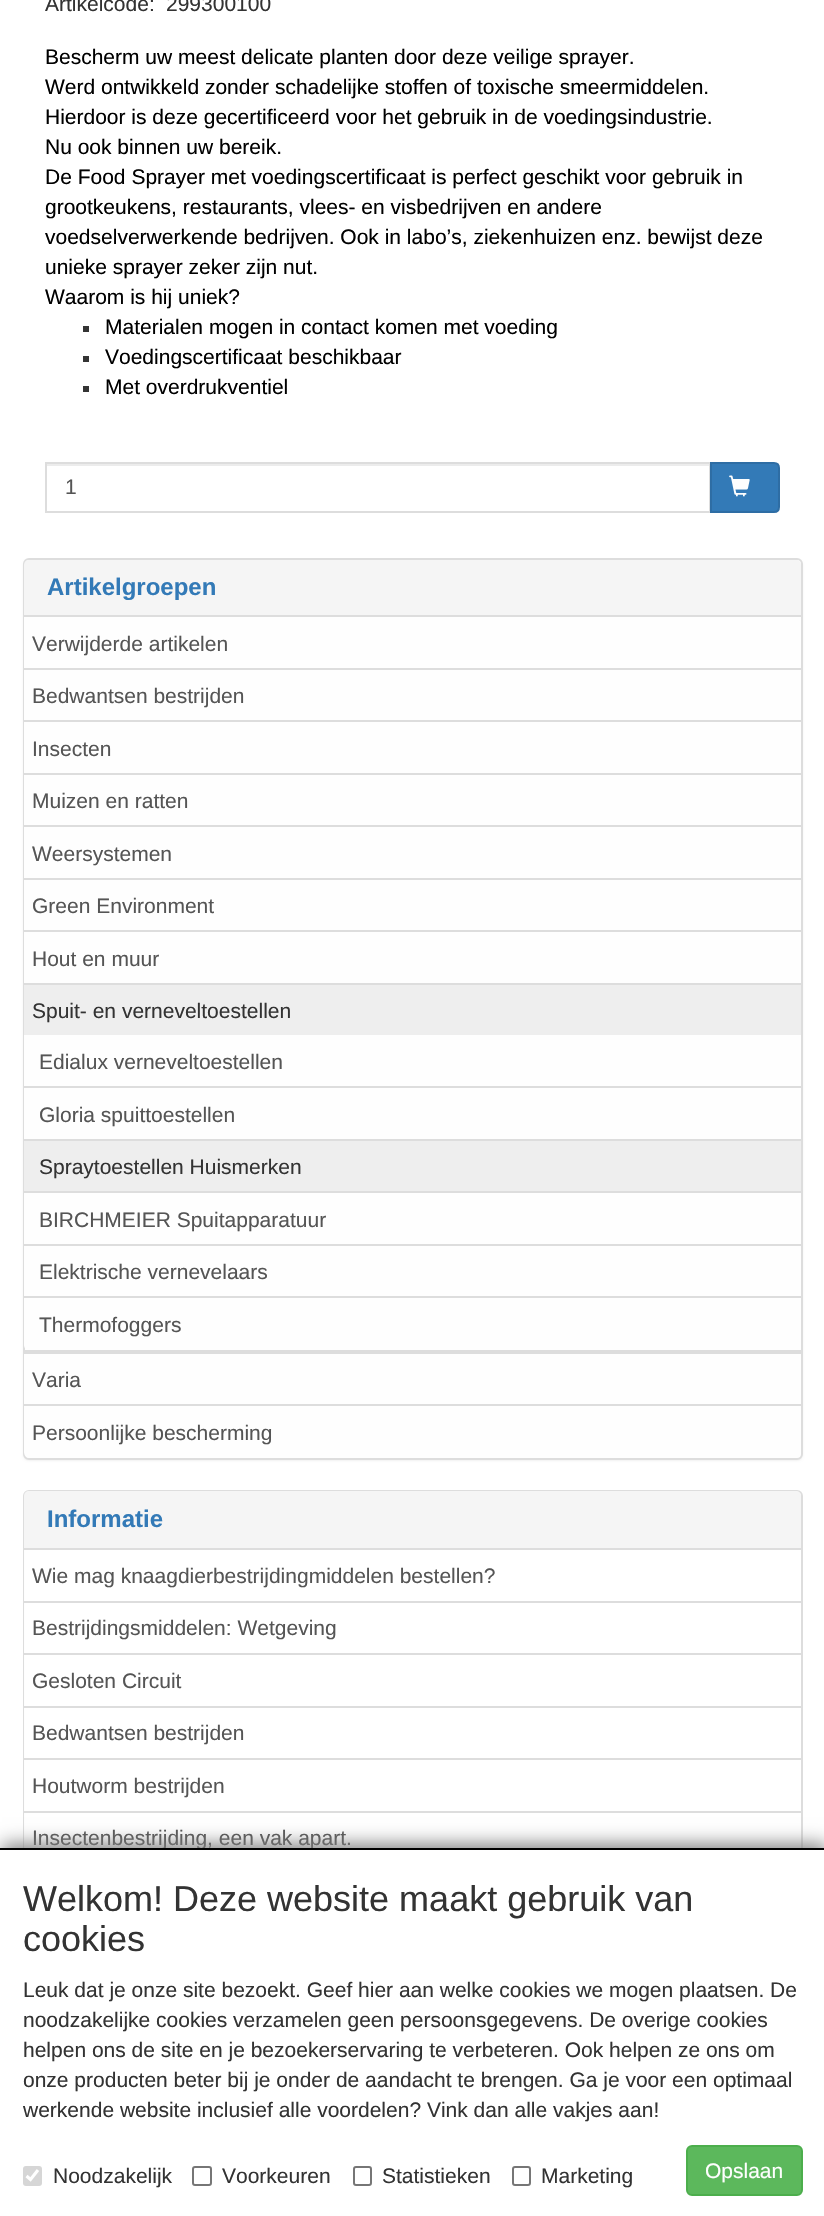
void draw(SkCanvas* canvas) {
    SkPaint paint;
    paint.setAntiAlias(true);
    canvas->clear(0xFFFFFFFF);
    SkFont font1(fontMgr->matchFamilyStyle("Liberation Sans", SkFontStyle::Normal()), 21);
    font1.setSubpixel(true);
    paint.setColor(0xFF333333);
    canvas->drawString("Artikelcode:", 45, 11, font1, paint);
    canvas->drawString("299300100", 166, 11, font1, paint);
    paint.setColor(0xFF000000);
    canvas->drawString("Bescherm uw meest delicate planten door deze veilige sprayer.", 45, 64, font1, paint);
    canvas->drawString("Werd ontwikkeld zonder schadelijke stoffen of toxische smeermiddelen.", 45, 94, font1, paint);
    canvas->drawString("Hierdoor is deze gecertificeerd voor het gebruik in de voedingsindustrie.", 45, 124, font1, paint);
    canvas->drawString("Nu ook binnen uw bereik.", 45, 154, font1, paint);
    canvas->drawString("De Food Sprayer met voedingscertificaat is perfect geschikt voor gebruik in", 45, 184, font1, paint);
    canvas->drawString("grootkeukens, restaurants, vlees- en visbedrijven en andere", 45, 214, font1, paint);
    canvas->drawString("voedselverwerkende bedrijven. Ook in labo’s, ziekenhuizen enz. bewijst deze", 45, 244, font1, paint);
    canvas->drawString("unieke sprayer zeker zijn nut.", 45, 274, font1, paint);
    canvas->drawString("Waarom is hij uniek?", 45, 304, font1, paint);
    paint.setColor(0xFF343434);
    canvas->drawRect(SkRect::MakeXYWH(83, 326, 6, 6), paint);
    paint.setColor(0xFF000000);
    canvas->drawString("Materialen mogen in contact komen met voeding", 105, 334, font1, paint);
    paint.setColor(0xFF343434);
    canvas->drawRect(SkRect::MakeXYWH(83, 356, 6, 6), paint);
    paint.setColor(0xFF000000);
    canvas->drawString("Voedingscertificaat beschikbaar", 105, 364, font1, paint);
    paint.setColor(0xFF343434);
    canvas->drawRect(SkRect::MakeXYWH(83, 386, 6, 6), paint);
    paint.setColor(0xFF000000);
    canvas->drawString("Met overdrukventiel", 105, 394, font1, paint);
    paint.setColor(0xFFECECEC);
    canvas->drawRect(SkRect::MakeXYWH(47, 464, 663, 2), paint);
    paint.setStyle(SkPaint::kStroke_Style);
    paint.setStrokeWidth(2);
    paint.setColor(0xFFDDDDDD);
    canvas->drawRect(SkRect::MakeXYWH(46, 463, 664, 49), paint);
    paint.setStyle(SkPaint::kFill_Style);
    paint.setColor(0xFF555555);
    canvas->drawString("1", 65, 494, font1, paint);
    paint.setColor(0xFF337AB7);
    canvas->drawPath(SkPathBuilder().moveTo(711, 463).lineTo(774, 463).cubicTo(777, 463, 779, 465, 779, 468).lineTo(779, 507).cubicTo(779, 510, 777, 512, 774, 512).lineTo(711, 512).close().detach(), paint);
    paint.setStyle(SkPaint::kStroke_Style);
    paint.setColor(0xFF2E6DA4);
    canvas->drawPath(SkPathBuilder().moveTo(711, 463).lineTo(774, 463).cubicTo(777, 463, 779, 465, 779, 468).lineTo(779, 507).cubicTo(779, 510, 777, 512, 774, 512).lineTo(711, 512).close().detach(), paint);
    canvas->drawImageRect(SkImages::DeferredFromEncodedData(SkData::MakeFromFileName("img1.png")), SkRect::MakeXYWH(729, 475, 21, 22), SkSamplingOptions());
    paint.setStyle(SkPaint::kFill_Style);
    paint.setColor(0x0D000000);
    paint.setMaskFilter(SkMaskFilter::MakeBlur(kNormal_SkBlurStyle, 1));
    canvas->drawRoundRect(SkRect::MakeXYWH(23, 560, 780, 901), 6, 6, paint);
    paint.setMaskFilter(nullptr);
    paint.setColor(0xFFFEFEFE);
    canvas->drawRoundRect(SkRect::MakeXYWH(24, 559, 778, 900), 5, 5, paint);
    paint.setStyle(SkPaint::kStroke_Style);
    paint.setColor(0xFFDDDDDD);
    canvas->drawRoundRect(SkRect::MakeXYWH(24, 559, 778, 900), 5, 5, paint);
    paint.setStyle(SkPaint::kFill_Style);
    paint.setColor(0xFFF5F5F5);
    canvas->drawPath(SkPathBuilder().moveTo(29, 560).lineTo(796, 560).cubicTo(799, 560, 801, 562, 801, 565).lineTo(801, 617).lineTo(24, 617).lineTo(24, 565).cubicTo(24, 562, 26, 560, 29, 560).close().detach(), paint);
    paint.setColor(0xFFDDDDDD);
    canvas->drawRect(SkRect::MakeXYWH(24, 615, 777, 2), paint);
    SkFont font2(fontMgr->matchFamilyStyle("Liberation Sans", SkFontStyle::Bold()), 24);
    font2.setSubpixel(true);
    paint.setColor(0xFF337AB7);
    canvas->drawString("Artikelgroepen", 47, 595, font2, paint);
    paint.setColor(0xFFFEFEFE);
    canvas->drawRect(SkRect::MakeXYWH(24, 617, 1, 51), paint);
    paint.setColor(0xFF555555);
    canvas->drawString("Verwijderde artikelen", 32, 651, font1, paint);
    paint.setColor(0xFFFEFEFE);
    canvas->drawRect(SkRect::MakeXYWH(24, 670, 1, 50), paint);
    paint.setColor(0xFFDDDDDD);
    canvas->drawRect(SkRect::MakeXYWH(24, 668, 777, 2), paint);
    paint.setColor(0xFF555555);
    canvas->drawString("Bedwantsen bestrijden", 32, 703, font1, paint);
    paint.setColor(0xFFFEFEFE);
    canvas->drawRect(SkRect::MakeXYWH(24, 722, 1, 51), paint);
    paint.setColor(0xFFDDDDDD);
    canvas->drawRect(SkRect::MakeXYWH(24, 720, 777, 2), paint);
    paint.setColor(0xFF555555);
    canvas->drawString("Insecten", 32, 756, font1, paint);
    paint.setColor(0xFFFEFEFE);
    canvas->drawRect(SkRect::MakeXYWH(24, 775, 1, 50), paint);
    paint.setColor(0xFFDDDDDD);
    canvas->drawRect(SkRect::MakeXYWH(24, 773, 777, 2), paint);
    paint.setColor(0xFF555555);
    canvas->drawString("Muizen en ratten", 32, 808, font1, paint);
    paint.setColor(0xFFFEFEFE);
    canvas->drawRect(SkRect::MakeXYWH(24, 827, 1, 51), paint);
    paint.setColor(0xFFDDDDDD);
    canvas->drawRect(SkRect::MakeXYWH(24, 825, 777, 2), paint);
    paint.setColor(0xFF555555);
    canvas->drawString("Weersystemen", 32, 861, font1, paint);
    paint.setColor(0xFFFEFEFE);
    canvas->drawRect(SkRect::MakeXYWH(24, 880, 1, 50), paint);
    paint.setColor(0xFFDDDDDD);
    canvas->drawRect(SkRect::MakeXYWH(24, 878, 777, 2), paint);
    paint.setColor(0xFF555555);
    canvas->drawString("Green Environment", 32, 913, font1, paint);
    paint.setColor(0xFFFEFEFE);
    canvas->drawRect(SkRect::MakeXYWH(24, 932, 1, 51), paint);
    paint.setColor(0xFFDDDDDD);
    canvas->drawRect(SkRect::MakeXYWH(24, 930, 777, 2), paint);
    paint.setColor(0xFF555555);
    canvas->drawString("Hout en muur", 32, 966, font1, paint);
    paint.setColor(0xFFEEEEEE);
    canvas->drawRect(SkRect::MakeXYWH(24, 985, 777, 50), paint);
    paint.setColor(0xFFDDDDDD);
    canvas->drawRect(SkRect::MakeXYWH(24, 983, 777, 2), paint);
    paint.setColor(0xFF333333);
    canvas->drawString("Spuit- en verneveltoestellen", 32, 1018, font1, paint);
    paint.setColor(0xFFDDDDDD);
    canvas->drawRect(SkRect::MakeXYWH(24, 1350, 777, 4), paint);
    paint.setColor(0xFFFEFEFE);
    canvas->drawRect(SkRect::MakeXYWH(24, 1035, 1, 51), paint);
    paint.setColor(0xFF555555);
    canvas->drawString("Edialux verneveltoestellen", 39, 1069, font1, paint);
    paint.setColor(0xFFFEFEFE);
    canvas->drawRect(SkRect::MakeXYWH(24, 1088, 1, 51), paint);
    paint.setColor(0xFFDDDDDD);
    canvas->drawRect(SkRect::MakeXYWH(24, 1086, 777, 2), paint);
    paint.setColor(0xFF555555);
    canvas->drawString("Gloria spuittoestellen", 39, 1122, font1, paint);
    paint.setColor(0xFFEEEEEE);
    canvas->drawRect(SkRect::MakeXYWH(24, 1141, 777, 50), paint);
    paint.setColor(0xFFDDDDDD);
    canvas->drawRect(SkRect::MakeXYWH(24, 1139, 777, 2), paint);
    paint.setColor(0xFF333333);
    canvas->drawString("Spraytoestellen Huismerken", 39, 1174, font1, paint);
    paint.setColor(0xFFFEFEFE);
    canvas->drawRect(SkRect::MakeXYWH(24, 1193, 1, 51), paint);
    paint.setColor(0xFFDDDDDD);
    canvas->drawRect(SkRect::MakeXYWH(24, 1191, 777, 2), paint);
    paint.setColor(0xFF555555);
    canvas->drawString("BIRCHMEIER Spuitapparatuur", 39, 1227, font1, paint);
    paint.setColor(0xFFFEFEFE);
    canvas->drawRect(SkRect::MakeXYWH(24, 1246, 1, 50), paint);
    paint.setColor(0xFFDDDDDD);
    canvas->drawRect(SkRect::MakeXYWH(24, 1244, 777, 2), paint);
    paint.setColor(0xFF555555);
    canvas->drawString("Elektrische vernevelaars", 39, 1279, font1, paint);
    paint.setColor(0xFFFEFEFE);
    canvas->drawPath(SkPathBuilder().moveTo(24, 1296).lineTo(801, 1296).lineTo(801, 1345).cubicTo(801, 1348, 799, 1350, 796, 1350).lineTo(29, 1350).cubicTo(26, 1350, 24, 1348, 24, 1345).close().detach(), paint);
    paint.setColor(0xFFDDDDDD);
    canvas->drawRect(SkRect::MakeXYWH(24, 1296, 777, 2), paint);
    paint.setColor(0xFF555555);
    canvas->drawString("Thermofoggers", 39, 1332, font1, paint);
    paint.setColor(0xFFFEFEFE);
    canvas->drawRect(SkRect::MakeXYWH(24, 1354, 1, 50), paint);
    paint.setColor(0xFF555555);
    canvas->drawString("Varia", 32, 1387, font1, paint);
    paint.setColor(0xFFFEFEFE);
    canvas->drawPath(SkPathBuilder().moveTo(24, 1404).lineTo(801, 1404).lineTo(801, 1452).cubicTo(801, 1455.5f, 798.5f, 1458, 795, 1458).lineTo(30, 1458).cubicTo(26.5f, 1458, 24, 1455.5f, 24, 1452).close().detach(), paint);
    paint.setColor(0xFFDDDDDD);
    canvas->drawRect(SkRect::MakeXYWH(24, 1404, 777, 2), paint);
    paint.setColor(0xFF555555);
    canvas->drawString("Persoonlijke bescherming", 32, 1440, font1, paint);
    paint.setStyle(SkPaint::kStroke_Style);
    paint.setColor(0xFFDDDDDD);
    canvas->drawRoundRect(SkRect::MakeXYWH(24, 1491, 778, 637), 5, 5, paint);
    paint.setStyle(SkPaint::kFill_Style);
    paint.setColor(0xFFF5F5F5);
    canvas->drawPath(SkPathBuilder().moveTo(29, 1491).lineTo(796, 1491).cubicTo(799, 1491, 801, 1493, 801, 1496).lineTo(801, 1550).lineTo(24, 1550).lineTo(24, 1496).cubicTo(24, 1493, 26, 1491, 29, 1491).close().detach(), paint);
    paint.setColor(0xFFDDDDDD);
    canvas->drawRect(SkRect::MakeXYWH(24, 1548, 777, 2), paint);
    paint.setColor(0xFF337AB7);
    canvas->drawString("Informatie", 47, 1527, font2, paint);
    paint.setColor(0xFFFEFEFE);
    canvas->drawRect(SkRect::MakeXYWH(24, 1550, 1, 51), paint);
    paint.setColor(0xFF555555);
    canvas->drawString("Wie mag knaagdierbestrijdingmiddelen bestellen?", 32, 1583, font1, paint);
    paint.setColor(0xFFFEFEFE);
    canvas->drawRect(SkRect::MakeXYWH(24, 1603, 1, 50), paint);
    paint.setColor(0xFFDDDDDD);
    canvas->drawRect(SkRect::MakeXYWH(24, 1601, 777, 2), paint);
    paint.setColor(0xFF555555);
    canvas->drawString("Bestrijdingsmiddelen: Wetgeving", 32, 1635, font1, paint);
    paint.setColor(0xFFFEFEFE);
    canvas->drawRect(SkRect::MakeXYWH(24, 1655, 1, 51), paint);
    paint.setColor(0xFFDDDDDD);
    canvas->drawRect(SkRect::MakeXYWH(24, 1653, 777, 2), paint);
    paint.setColor(0xFF555555);
    canvas->drawString("Gesloten Circuit", 32, 1688, font1, paint);
    paint.setColor(0xFFFEFEFE);
    canvas->drawRect(SkRect::MakeXYWH(24, 1708, 1, 50), paint);
    paint.setColor(0xFFDDDDDD);
    canvas->drawRect(SkRect::MakeXYWH(24, 1706, 777, 2), paint);
    paint.setColor(0xFF555555);
    canvas->drawString("Bedwantsen bestrijden", 32, 1740, font1, paint);
    paint.setColor(0xFFFEFEFE);
    canvas->drawRect(SkRect::MakeXYWH(24, 1760, 1, 51), paint);
    paint.setColor(0xFFDDDDDD);
    canvas->drawRect(SkRect::MakeXYWH(24, 1758, 777, 2), paint);
    paint.setColor(0xFF555555);
    canvas->drawString("Houtworm bestrijden", 32, 1793, font1, paint);
    paint.setColor(0xFFFEFEFE);
    canvas->drawRect(SkRect::MakeXYWH(24, 1813, 1, 35), paint);
    paint.setColor(0xFFDDDDDD);
    canvas->drawRect(SkRect::MakeXYWH(24, 1811, 777, 2), paint);
    paint.setColor(0xFF555555);
    canvas->drawString("Insectenbestrijding, een vak apart.", 32, 1845, font1, paint);
    paint.setColor(0xFF808080);
    paint.setMaskFilter(SkMaskFilter::MakeBlur(kNormal_SkBlurStyle, 9));
    canvas->drawRect(SkRect::MakeXYWH(2, 1844, 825, 369), paint);
    paint.setMaskFilter(nullptr);
    paint.setColor(0xFFFFFFFF);
    canvas->drawRect(SkRect::MakeXYWH(0, 1850, 824, 366), paint);
    paint.setColor(0xFF000000);
    canvas->drawRect(SkRect::MakeXYWH(0, 1848, 824, 2), paint);
    SkFont font3(fontMgr->matchFamilyStyle("Liberation Sans", SkFontStyle::Normal()), 36);
    font3.setSubpixel(true);
    paint.setColor(0xFF333333);
    canvas->drawString("Welkom! Deze website maakt gebruik van", 23, 1911, font3, paint);
    canvas->drawString("cookies", 23, 1951, font3, paint);
    canvas->drawString("Leuk dat je onze site bezoekt. Geef hier aan welke cookies we mogen plaatsen. De", 23, 1997, font1, paint);
    canvas->drawString("noodzakelijke cookies verzamelen geen persoonsgegevens. De overige cookies", 23, 2027, font1, paint);
    canvas->drawString("helpen ons de site en je bezoekerservaring te verbeteren. Ook helpen ze ons om", 23, 2057, font1, paint);
    canvas->drawString("onze producten beter bij je onder de aandacht te brengen. Ga je voor een optimaal", 23, 2087, font1, paint);
    canvas->drawString("werkende website inclusief alle voordelen? Vink dan alle vakjes aan!", 23, 2117, font1, paint);
    paint.setColor(0xFFD6D6D6);
    canvas->drawRoundRect(SkRect::MakeXYWH(23, 2166, 19, 20), 3, 3, paint);
    paint.setStyle(SkPaint::kStroke_Style);
    paint.setStrokeWidth(3.1f);
    paint.setColor(0xFFFFFFFF);
    canvas->drawPath(SkPathBuilder().moveTo(26.5f, 2176).lineTo(30.5f, 2179.5f).lineTo(38, 2170).detach(), paint);
    paint.setStyle(SkPaint::kFill_Style);
    paint.setColor(0xFF333333);
    canvas->drawString("Noodzakelijk", 53, 2183, font1, paint);
    paint.setStyle(SkPaint::kStroke_Style);
    paint.setStrokeWidth(2);
    paint.setColor(0xFF767676);
    canvas->drawRoundRect(SkRect::MakeXYWH(193, 2167, 18, 18), 2, 2, paint);
    paint.setStyle(SkPaint::kFill_Style);
    paint.setColor(0xFF333333);
    canvas->drawString("Voorkeuren", 222, 2183, font1, paint);
    paint.setStyle(SkPaint::kStroke_Style);
    paint.setColor(0xFF767676);
    canvas->drawRoundRect(SkRect::MakeXYWH(354, 2167, 17, 18), 2, 2, paint);
    paint.setStyle(SkPaint::kFill_Style);
    paint.setColor(0xFF333333);
    canvas->drawString("Statistieken", 382, 2183, font1, paint);
    paint.setStyle(SkPaint::kStroke_Style);
    paint.setColor(0xFF767676);
    canvas->drawRoundRect(SkRect::MakeXYWH(513, 2167, 17, 18), 2, 2, paint);
    paint.setStyle(SkPaint::kFill_Style);
    paint.setColor(0xFF333333);
    canvas->drawString("Marketing", 541, 2183, font1, paint);
    paint.setColor(0xFF5CB85C);
    canvas->drawRoundRect(SkRect::MakeXYWH(687, 2146, 115, 49), 5, 5, paint);
    paint.setStyle(SkPaint::kStroke_Style);
    paint.setColor(0xFF4CAE4C);
    canvas->drawRoundRect(SkRect::MakeXYWH(687, 2146, 115, 49), 5, 5, paint);
    paint.setStyle(SkPaint::kFill_Style);
    paint.setColor(0xFFFEFEFE);
    canvas->drawString("Opslaan", 705, 2178, font1, paint);
}
